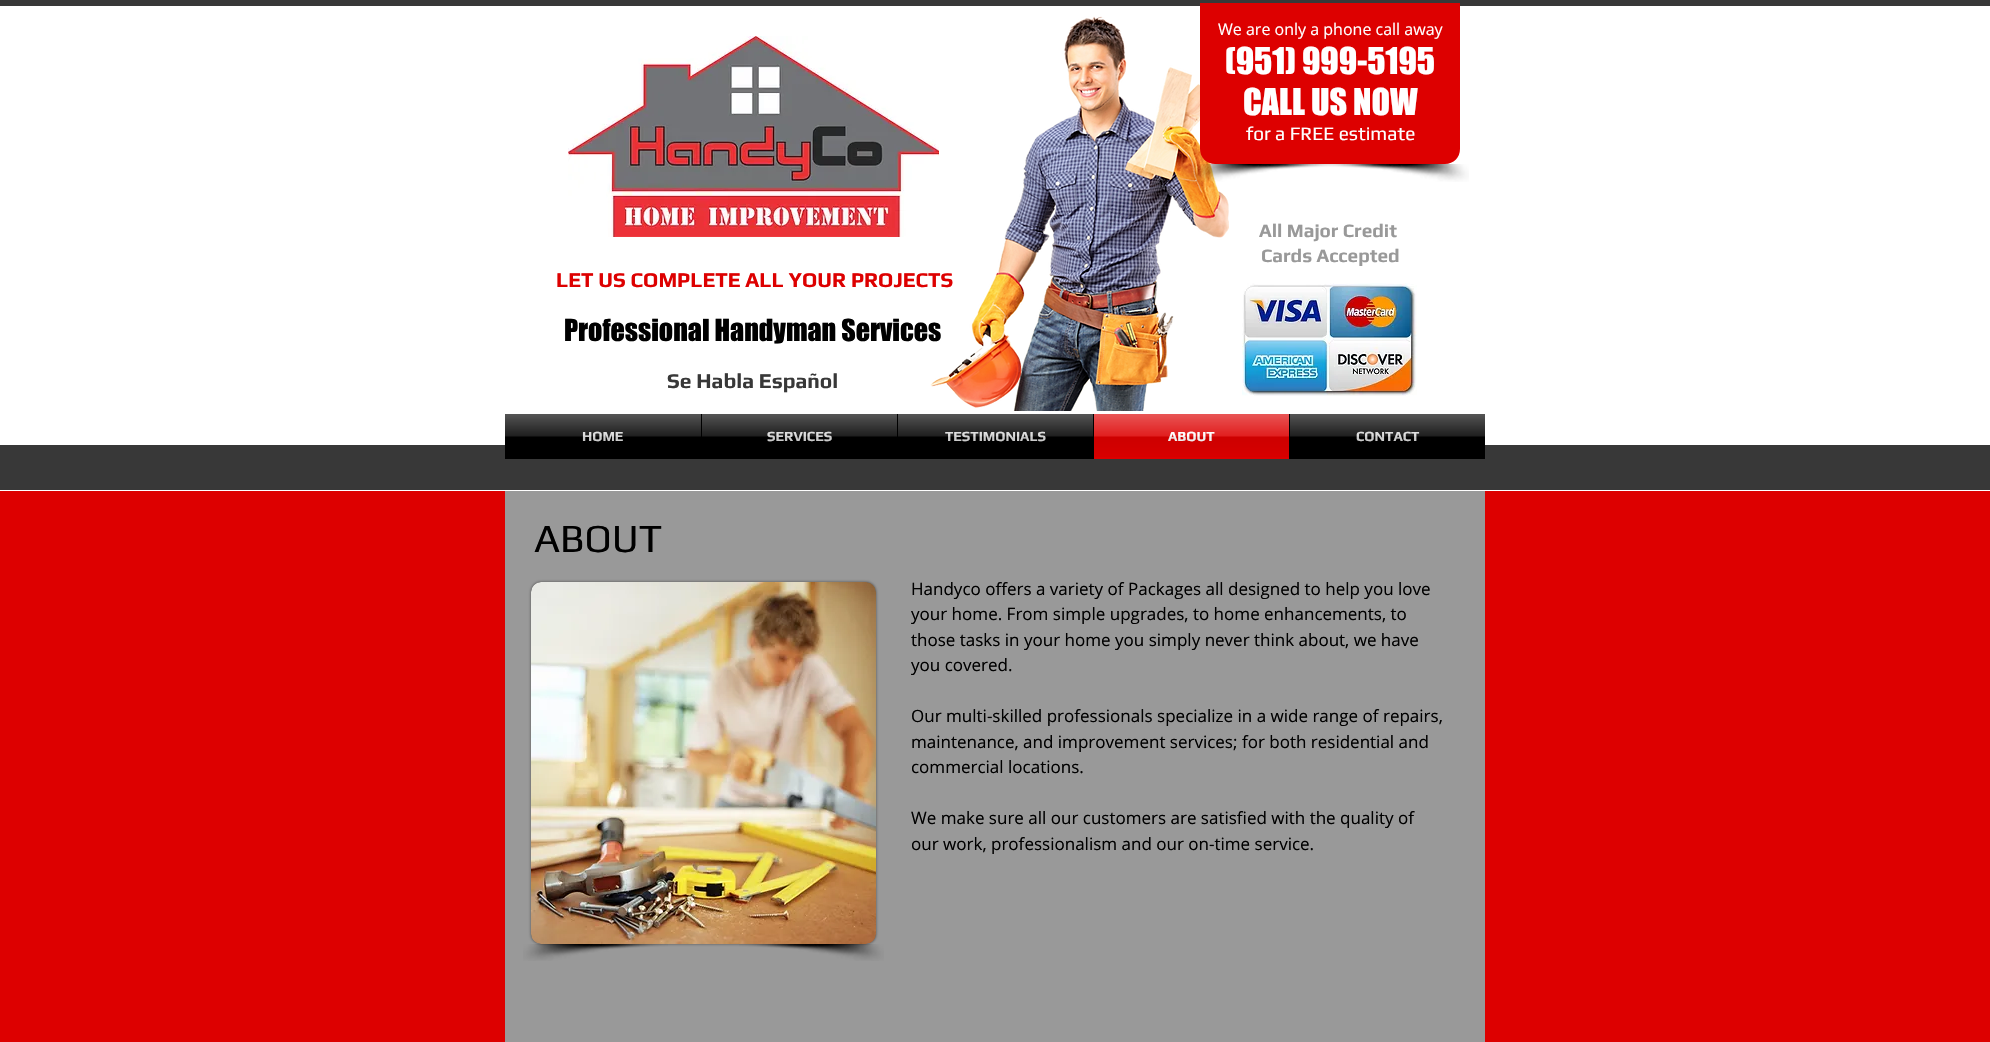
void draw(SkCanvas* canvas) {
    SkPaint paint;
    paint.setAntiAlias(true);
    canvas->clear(0xFFDD0000);
    paint.setColor(0xFFFFFFFF);
    canvas->drawRect(SkRect::MakeXYWH(0, 6, 1990, 485), paint);
    paint.setColor(0xFF383838);
    canvas->drawRect(SkRect::MakeXYWH(0, 0, 1990, 6), paint);
    canvas->drawImageRect(SkImages::DeferredFromEncodedData(SkData::MakeFromFileName("img8.png")), SkRect::MakeXYWH(568, 36, 371, 201), SkSamplingOptions());
    SkFont font1(fontMgr->matchFamilyStyle("Play", SkFontStyle::Bold()), 21);
    font1.setSubpixel(true);
    paint.setColor(0xFFDD0000);
    canvas->drawString("LET US COMPLETE ALL YOUR PROJECTS", 556, 287, font1, paint);
    SkFont font2(fontMgr->matchFamilyStyle("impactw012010", SkFontStyle::Normal()), 28);
    font2.setSubpixel(true);
    paint.setColor(0xFF000000);
    canvas->drawString("Professional Handyman Services", 564, 341, font2, paint);
    canvas->drawImageRect(SkImages::DeferredFromEncodedData(SkData::MakeFromFileName("img9.png")), SkRect::MakeXYWH(930, 16, 299, 395), SkSamplingOptions());
    paint.setColor(0xFFDD0000);
    canvas->drawPath(SkPathBuilder().moveTo(1200, 3).lineTo(1460, 3).lineTo(1460, 149).cubicTo(1460, 157.5f, 1453.5f, 164, 1445, 164).lineTo(1215, 164).cubicTo(1206.5f, 164, 1200, 157.5f, 1200, 149).close().detach(), paint);
    SkFont font3(fontMgr->matchFamilyStyle("Open Sans", SkFontStyle::Normal()), 16);
    font3.setSubpixel(true);
    paint.setColor(0xFFFFFFFF);
    canvas->drawString("We are only a phone call away", 1218, 35, font3, paint);
    SkFont font4(fontMgr->matchFamilyStyle("impactw012010", SkFontStyle::Normal()), 34);
    font4.setSubpixel(true);
    canvas->drawString("(951) 999-5195", 1225, 74, font4, paint);
    canvas->drawString("CALL US NOW", 1243, 115, font4, paint);
    SkFont font5(fontMgr->matchFamilyStyle("Play", SkFontStyle::Normal()), 19);
    font5.setSubpixel(true);
    canvas->drawString("for a FREE estimate", 1246, 140, font5, paint);
    canvas->drawImageRect(SkImages::DeferredFromEncodedData(SkData::MakeFromFileName("img1.png")), SkRect::MakeXYWH(1191, 164, 154, 18), SkSamplingOptions());
    canvas->drawImageRect(SkImages::DeferredFromEncodedData(SkData::MakeFromFileName("img2.png")), SkRect::MakeXYWH(1315, 164, 154, 18), SkSamplingOptions());
    paint.setColor(0xFF383838);
    canvas->drawRect(SkRect::MakeXYWH(0, 445, 1990, 45), paint);
    paint.setColor(0xFF000000);
    canvas->drawRect(SkRect::MakeXYWH(505, 414, 589, 45), paint);
    SkFont font6(fontMgr->matchFamilyStyle("Play", SkFontStyle::Bold()), 14);
    font6.setSubpixel(true);
    paint.setColor(0xFFD9D9D9);
    canvas->drawString("HOME", 582, 441, font6, paint);
    canvas->drawImageRect(SkImages::DeferredFromEncodedData(SkData::MakeFromFileName("img3.png")), SkRect::MakeXYWH(505, 414, 196, 27), SkSamplingOptions());
    canvas->drawString("SERVICES", 767, 441, font6, paint);
    canvas->drawImageRect(SkImages::DeferredFromEncodedData(SkData::MakeFromFileName("img4.png")), SkRect::MakeXYWH(702, 414, 195, 27), SkSamplingOptions());
    canvas->drawString("TESTIMONIALS", 945, 441, font6, paint);
    canvas->drawImageRect(SkImages::DeferredFromEncodedData(SkData::MakeFromFileName("img5.png")), SkRect::MakeXYWH(898, 414, 195, 27), SkSamplingOptions());
    paint.setColor(0xFFDD0000);
    canvas->drawRect(SkRect::MakeXYWH(1094, 414, 195, 45), paint);
    paint.setColor(0xFFFFFFFF);
    canvas->drawString("ABOUT", 1168, 441, font6, paint);
    canvas->drawImageRect(SkImages::DeferredFromEncodedData(SkData::MakeFromFileName("img6.png")), SkRect::MakeXYWH(1094, 414, 195, 43), SkSamplingOptions());
    paint.setColor(0xFF000000);
    canvas->drawRect(SkRect::MakeXYWH(1289, 414, 196, 45), paint);
    paint.setColor(0xFFD9D9D9);
    canvas->drawString("CONTACT", 1356, 441, font6, paint);
    canvas->drawImageRect(SkImages::DeferredFromEncodedData(SkData::MakeFromFileName("img7.png")), SkRect::MakeXYWH(1290, 414, 195, 27), SkSamplingOptions());
    SkFont font7(fontMgr->matchFamilyStyle("Play", SkFontStyle::Bold()), 19);
    font7.setSubpixel(true);
    paint.setColor(0xFF999999);
    canvas->drawString("All Major Credit", 1259, 237, font7, paint);
    canvas->drawString("Cards Accepted", 1261, 262, font7, paint);
    canvas->drawImageRect(SkImages::DeferredFromEncodedData(SkData::MakeFromFileName("img10.png")), SkRect::MakeXYWH(1242, 283, 175, 113), SkSamplingOptions());
    paint.setColor(0xFF383838);
    canvas->drawString("Se Habla Español", 667, 388, font1, paint);
    paint.setColor(0xFF999999);
    canvas->drawRect(SkRect::MakeXYWH(505, 491, 980, 551), paint);
    SkFont font8(fontMgr->matchFamilyStyle("Play", SkFontStyle::Normal()), 40);
    font8.setSubpixel(true);
    paint.setColor(0xFF000000);
    canvas->drawString("ABOUT", 534, 552, font8, paint);
    paint.setColor(0x80000000);
    paint.setMaskFilter(SkMaskFilter::MakeBlur(kNormal_SkBlurStyle, 1.5f));
    canvas->drawRoundRect(SkRect::MakeXYWH(531, 582, 345, 362), 10, 10, paint);
    paint.setMaskFilter(nullptr);
    canvas->drawImageRect(SkImages::DeferredFromEncodedData(SkData::MakeFromFileName("img11.png")), SkRect::MakeXYWH(531, 582, 345, 362), SkSamplingOptions());
    canvas->drawImageRect(SkImages::DeferredFromEncodedData(SkData::MakeFromFileName("img12.png")), SkRect::MakeXYWH(523, 944, 145, 17), SkSamplingOptions());
    canvas->drawImageRect(SkImages::DeferredFromEncodedData(SkData::MakeFromFileName("img13.png")), SkRect::MakeXYWH(739, 944, 145, 17), SkSamplingOptions());
    SkFont font9(fontMgr->matchFamilyStyle("Open Sans", SkFontStyle::Normal()), 17);
    font9.setSubpixel(true);
    paint.setColor(0xFF000000);
    canvas->drawString("Handyco offers a variety of Packages all designed to help you love", 911, 595, font9, paint);
    canvas->drawString("your home. From simple upgrades, to home enhancements, to", 911, 620, font9, paint);
    canvas->drawString("those tasks in your home you simply never think about, we have", 911, 646, font9, paint);
    canvas->drawString("you covered.", 911, 671, font9, paint);
    canvas->drawString("Our multi-skilled professionals specialize in a wide range of repairs,", 911, 722, font9, paint);
    canvas->drawString("maintenance, and improvement services; for both residential and", 911, 748, font9, paint);
    canvas->drawString("commercial locations.", 911, 773, font9, paint);
    canvas->drawString("We make sure all our customers are satisfied with the quality of", 911, 824, font9, paint);
    canvas->drawString("our work, professionalism and our on-time service.", 911, 850, font9, paint);
}
